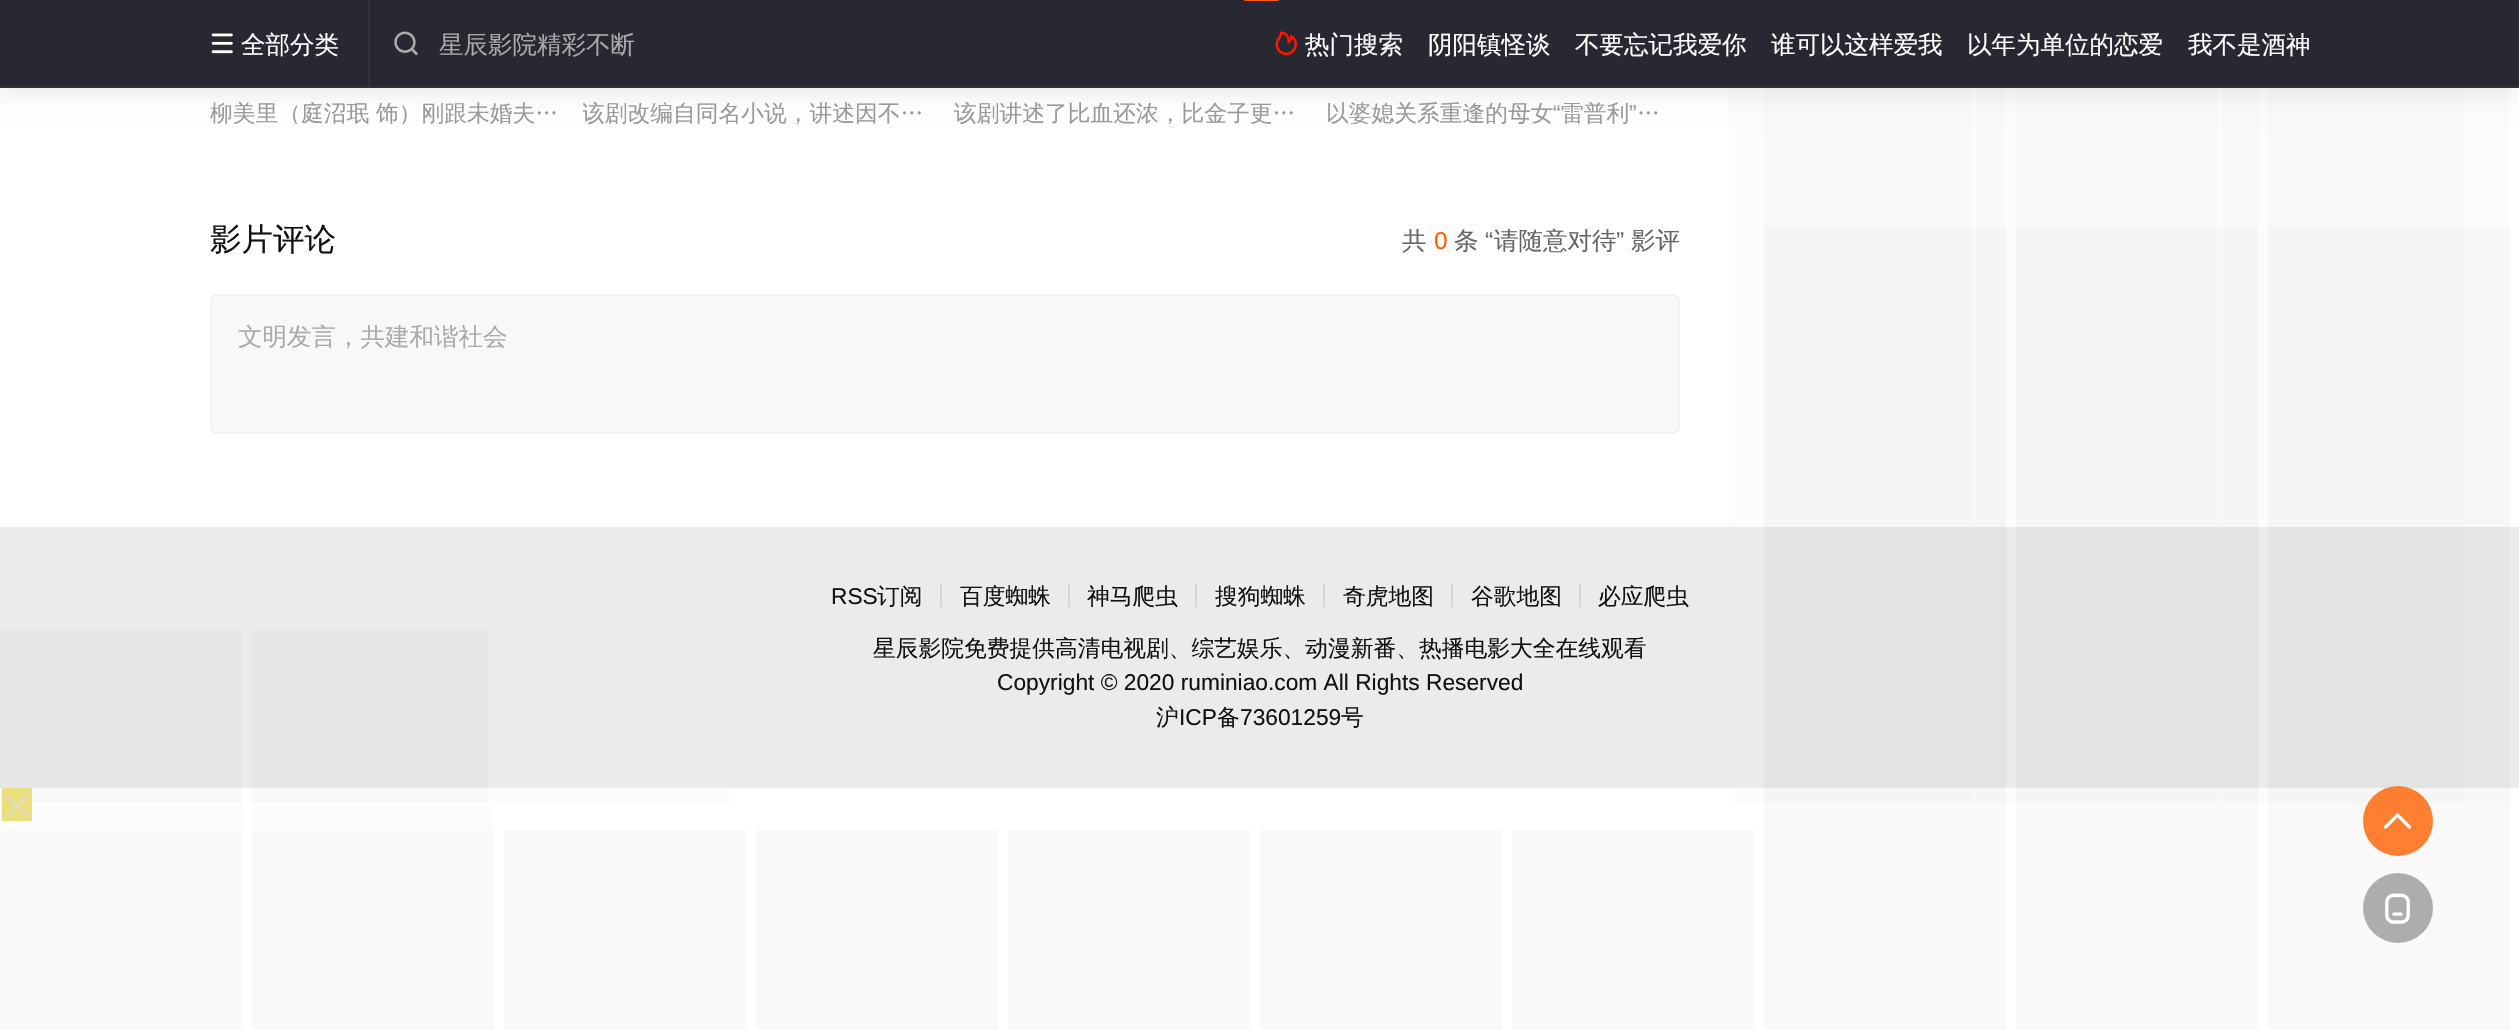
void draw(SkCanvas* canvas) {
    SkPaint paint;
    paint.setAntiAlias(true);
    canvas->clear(0xFFFFFFFF);
    paint.setColor(0xFFFCFCFC);
    canvas->drawRect(SkRect::MakeXYWH(2464, 88, 46, 140), paint);
    canvas->drawRect(SkRect::MakeXYWH(2217, 88, 6, 140), paint);
    canvas->drawRect(SkRect::MakeXYWH(1971, 88, 5, 140), paint);
    paint.setColor(0xFFF7F7F7);
    canvas->drawRect(SkRect::MakeXYWH(2464, 228, 46, 299), paint);
    canvas->drawRect(SkRect::MakeXYWH(2217, 228, 6, 299), paint);
    canvas->drawRect(SkRect::MakeXYWH(1971, 228, 5, 299), paint);
    paint.setColor(0xFFF9F9F9);
    canvas->drawRect(SkRect::MakeXYWH(2268, 803, 242, 227), paint);
    paint.setColor(0xFFF7F7F7);
    canvas->drawRect(SkRect::MakeXYWH(2464, 788, 46, 15), paint);
    paint.setColor(0xFFF9F9F9);
    canvas->drawRect(SkRect::MakeXYWH(2016, 803, 242, 227), paint);
    paint.setColor(0xFFF7F7F7);
    canvas->drawRect(SkRect::MakeXYWH(2217, 788, 6, 15), paint);
    paint.setColor(0xFFF9F9F9);
    canvas->drawRect(SkRect::MakeXYWH(1764, 803, 242, 227), paint);
    paint.setColor(0xFFF7F7F7);
    canvas->drawRect(SkRect::MakeXYWH(1971, 788, 5, 15), paint);
    paint.setColor(0xFFFCFCFC);
    canvas->drawRect(SkRect::MakeXYWH(252, 788, 242, 42), paint);
    canvas->drawRect(SkRect::MakeXYWH(0, 803, 242, 27), paint);
    canvas->drawRect(SkRect::MakeXYWH(2258, 788, 10, 15), paint);
    paint.setColor(0xFFF5F5F5);
    canvas->drawRect(SkRect::MakeXYWH(2268, 788, 196, 15), paint);
    canvas->drawRect(SkRect::MakeXYWH(2223, 788, 35, 15), paint);
    paint.setColor(0xFFFCFCFC);
    canvas->drawRect(SkRect::MakeXYWH(2006, 788, 10, 15), paint);
    paint.setColor(0xFFF5F5F5);
    canvas->drawRect(SkRect::MakeXYWH(2016, 788, 201, 15), paint);
    canvas->drawRect(SkRect::MakeXYWH(1976, 788, 30, 15), paint);
    paint.setColor(0xFFFCFCFC);
    canvas->drawRect(SkRect::MakeXYWH(1729, 788, 35, 15), paint);
    paint.setColor(0xFFF5F5F5);
    canvas->drawRect(SkRect::MakeXYWH(1764, 788, 207, 15), paint);
    paint.setColor(0xFFFCFCFC);
    canvas->drawRect(SkRect::MakeXYWH(494, 788, 241, 15), paint);
    canvas->drawRect(SkRect::MakeXYWH(247, 788, 5, 15), paint);
    paint.setColor(0xFFF9F9F9);
    canvas->drawRect(SkRect::MakeXYWH(252, 788, 236, 15), paint);
    canvas->drawRect(SkRect::MakeXYWH(0, 788, 242, 15), paint);
    paint.setColor(0xFFFCFCFC);
    canvas->drawRect(SkRect::MakeXYWH(2258, 403, 10, 124), paint);
    paint.setColor(0xFFF5F5F5);
    canvas->drawRect(SkRect::MakeXYWH(2268, 228, 196, 299), paint);
    canvas->drawRect(SkRect::MakeXYWH(2223, 228, 35, 299), paint);
    paint.setColor(0xFFFCFCFC);
    canvas->drawRect(SkRect::MakeXYWH(2006, 403, 10, 124), paint);
    paint.setColor(0xFFF5F5F5);
    canvas->drawRect(SkRect::MakeXYWH(2016, 228, 201, 299), paint);
    canvas->drawRect(SkRect::MakeXYWH(1976, 228, 30, 299), paint);
    paint.setColor(0xFFFCFCFC);
    canvas->drawRect(SkRect::MakeXYWH(1729, 403, 35, 124), paint);
    paint.setColor(0xFFF5F5F5);
    canvas->drawRect(SkRect::MakeXYWH(1764, 228, 207, 299), paint);
    paint.setColor(0xFFFCFCFC);
    canvas->drawRect(SkRect::MakeXYWH(1729, 88, 35, 315), paint);
    paint.setColor(0xFFF9F9F9);
    canvas->drawRect(SkRect::MakeXYWH(1764, 88, 207, 140), paint);
    paint.setColor(0xFFFCFCFC);
    canvas->drawRect(SkRect::MakeXYWH(2006, 88, 10, 315), paint);
    paint.setColor(0xFFF9F9F9);
    canvas->drawRect(SkRect::MakeXYWH(2016, 88, 201, 140), paint);
    canvas->drawRect(SkRect::MakeXYWH(1976, 88, 30, 140), paint);
    paint.setColor(0xFFFCFCFC);
    canvas->drawRect(SkRect::MakeXYWH(2258, 88, 10, 315), paint);
    paint.setColor(0xFFF9F9F9);
    canvas->drawRect(SkRect::MakeXYWH(2268, 88, 196, 140), paint);
    canvas->drawRect(SkRect::MakeXYWH(2223, 88, 35, 140), paint);
    paint.setColor(0x1A000000);
    paint.setMaskFilter(SkMaskFilter::MakeBlur(kNormal_SkBlurStyle, 13));
    canvas->drawRect(SkRect::MakeXYWH(0, -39, 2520, 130), paint);
    paint.setMaskFilter(nullptr);
    paint.setColor(0xFF282832);
    canvas->drawRect(SkRect::MakeXYWH(0, 0, 2519, 86), paint);
    paint.setColor(0xFFFF5F00);
    canvas->drawRoundRect(SkRect::MakeXYWH(1244, -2, 35, 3), 2, 2, paint);
    paint.setColor(0xFF333333);
    canvas->drawRect(SkRect::MakeXYWH(368, 0, 2, 88), paint);
    canvas->drawImageRect(SkImages::DeferredFromEncodedData(SkData::MakeFromFileName("img1.png")), SkRect::MakeXYWH(211, 33, 22, 21), SkSamplingOptions());
    SkFont font1(fontMgr->matchFamilyStyle("WenQuanYi Zen Hei", SkFontStyle(500, SkFontStyle::kNormal_Width, SkFontStyle::kUpright_Slant)), 24.5f);
    font1.setSubpixel(true);
    paint.setColor(0xFFFFFFFF);
    canvas->drawString("全部分类", 241, 53, font1, paint);
    canvas->drawImageRect(SkImages::DeferredFromEncodedData(SkData::MakeFromFileName("img2.png")), SkRect::MakeXYWH(394, 31, 24, 25), SkSamplingOptions());
    paint.setColor(0xFFAAAAAA);
    canvas->drawString("星辰影院精彩不断", 439, 53, font1, paint);
    canvas->drawImageRect(SkImages::DeferredFromEncodedData(SkData::MakeFromFileName("img3.png")), SkRect::MakeXYWH(1275, 31, 23, 25), SkSamplingOptions());
    paint.setColor(0xFFFFFFFF);
    canvas->drawString("热门搜索", 1305, 53, font1, paint);
    canvas->drawString("阴阳镇怪谈", 1428, 53, font1, paint);
    canvas->drawString("不要忘记我爱你", 1575, 53, font1, paint);
    canvas->drawString("谁可以这样爱我", 1771, 53, font1, paint);
    canvas->drawString("以年为单位的恋爱", 1967, 53, font1, paint);
    canvas->drawString("我不是酒神", 2188, 53, font1, paint);
    paint.setColor(0xFF333333);
    canvas->drawRect(SkRect::MakeXYWH(0, 86, 2519, 2), paint);
    canvas->save();
    canvas->clipRect(SkRect::MakeXYWH(210, 102, 355, 22));
    SkFont font2(fontMgr->matchFamilyStyle("WenQuanYi Zen Hei", SkFontStyle(500, SkFontStyle::kNormal_Width, SkFontStyle::kUpright_Slant)), 22.75f);
    font2.setSubpixel(true);
    paint.setColor(0xFF999999);
    canvas->drawString("柳美里（庭沼珉 饰）刚跟未婚夫…", 210, 121, font2, paint);
    canvas->restore();
    canvas->save();
    canvas->clipRect(SkRect::MakeXYWH(583, 102, 353, 22));
    canvas->drawString("该剧改编自同名小说，讲述因不…", 582, 121, font2, paint);
    canvas->restore();
    canvas->save();
    canvas->clipRect(SkRect::MakeXYWH(954, 102, 355, 22));
    canvas->drawString("该剧讲述了比血还浓，比金子更…", 954, 121, font2, paint);
    canvas->restore();
    canvas->save();
    canvas->clipRect(SkRect::MakeXYWH(1327, 102, 353, 22));
    canvas->drawString("以婆媳关系重逢的母女", 1326, 121, font2, paint);
    canvas->restore();
    SkFont font3(fontMgr->matchFamilyStyle("Liberation Sans", SkFontStyle::Normal()), 22.75f);
    font3.setSubpixel(true);
    canvas->drawString("“", 1553, 121, font3, paint);
    canvas->save();
    canvas->clipRect(SkRect::MakeXYWH(1327, 102, 353, 22));
    canvas->drawString("雷普利", 1561, 121, font2, paint);
    canvas->restore();
    canvas->drawString("”", 1629, 121, font3, paint);
    canvas->drawString("…", 1637, 121, font2, paint);
    SkFont font4(fontMgr->matchFamilyStyle("WenQuanYi Zen Hei", SkFontStyle(500, SkFontStyle::kNormal_Width, SkFontStyle::kUpright_Slant)), 31.5f);
    font4.setSubpixel(true);
    paint.setColor(0xFF111111);
    canvas->drawString("影片评论", 210, 250, font4, paint);
    paint.setColor(0xFF666666);
    canvas->drawString("共", 1402, 249, font1, paint);
    SkFont font5(fontMgr->matchFamilyStyle("Liberation Sans", SkFontStyle::Normal()), 24.5f);
    font5.setSubpixel(true);
    paint.setColor(0xFFFF5F00);
    canvas->drawString("0", 1434, 249, font5, paint);
    paint.setColor(0xFF666666);
    canvas->drawString("条", 1454, 249, font1, paint);
    canvas->drawString("“", 1485, 249, font5, paint);
    canvas->drawString("请随意对待", 1494, 249, font1, paint);
    canvas->drawString("”", 1616, 249, font5, paint);
    canvas->drawString("影评", 1631, 249, font1, paint);
    paint.setColor(0xFFF8F8F8);
    canvas->drawRoundRect(SkRect::MakeXYWH(211, 295, 1468, 138), 6, 6, paint);
    paint.setStyle(SkPaint::kStroke_Style);
    paint.setStrokeWidth(2);
    paint.setColor(0xFFF1F1F1);
    canvas->drawRoundRect(SkRect::MakeXYWH(211, 295, 1468, 138), 6, 6, paint);
    paint.setStyle(SkPaint::kFill_Style);
    paint.setColor(0xFFAAAAAA);
    canvas->drawString("文明发言，共建和谐社会", 238, 345, font1, paint);
    paint.setColor(0xFFEBEBEB);
    canvas->drawRect(SkRect::MakeXYWH(0, 527, 2519, 261), paint);
    paint.setColor(0xFFE5E5E5);
    canvas->drawRect(SkRect::MakeXYWH(2464, 527, 46, 261), paint);
    canvas->drawRect(SkRect::MakeXYWH(2217, 527, 6, 261), paint);
    canvas->drawRect(SkRect::MakeXYWH(1971, 527, 5, 261), paint);
    paint.setColor(0xFFE3E3E3);
    canvas->drawRect(SkRect::MakeXYWH(2268, 527, 196, 261), paint);
    canvas->drawRect(SkRect::MakeXYWH(2223, 527, 35, 261), paint);
    canvas->drawRect(SkRect::MakeXYWH(2016, 527, 201, 261), paint);
    canvas->drawRect(SkRect::MakeXYWH(1976, 527, 30, 261), paint);
    canvas->drawRect(SkRect::MakeXYWH(1764, 527, 207, 261), paint);
    paint.setColor(0xFFE7E7E7);
    canvas->drawRect(SkRect::MakeXYWH(252, 630, 236, 158), paint);
    canvas->drawRect(SkRect::MakeXYWH(0, 630, 242, 158), paint);
    paint.setColor(0xFF111111);
    canvas->drawString("RSS", 831, 604, font3, paint);
    canvas->drawString("订阅", 877, 604, font2, paint);
    paint.setColor(0xFFD6D6D6);
    canvas->drawRect(SkRect::MakeXYWH(940, 583, 2, 24), paint);
    paint.setColor(0xFF111111);
    canvas->drawString("百度蜘蛛", 960, 604, font2, paint);
    paint.setColor(0xFFD6D6D6);
    canvas->drawRect(SkRect::MakeXYWH(1068, 583, 2, 24), paint);
    paint.setColor(0xFF111111);
    canvas->drawString("神马爬虫", 1087, 604, font2, paint);
    paint.setColor(0xFFD6D6D6);
    canvas->drawRect(SkRect::MakeXYWH(1195, 583, 2, 24), paint);
    paint.setColor(0xFF111111);
    canvas->drawString("搜狗蜘蛛", 1215, 604, font2, paint);
    paint.setColor(0xFFD6D6D6);
    canvas->drawRect(SkRect::MakeXYWH(1323, 583, 2, 24), paint);
    paint.setColor(0xFF111111);
    canvas->drawString("奇虎地图", 1343, 604, font2, paint);
    paint.setColor(0xFFD6D6D6);
    canvas->drawRect(SkRect::MakeXYWH(1451, 583, 2, 24), paint);
    paint.setColor(0xFF111111);
    canvas->drawString("谷歌地图", 1471, 604, font2, paint);
    paint.setColor(0xFFD6D6D6);
    canvas->drawRect(SkRect::MakeXYWH(1579, 583, 2, 24), paint);
    paint.setColor(0xFF111111);
    canvas->drawString("必应爬虫", 1598, 604, font2, paint);
    canvas->drawString("星辰影院免费提供高清电视剧、综艺娱乐、动漫新番、热播电影大全在线观看", 873, 656, font2, paint);
    canvas->drawString("Copyright © 2020 ruminiao.com All Rights Reserved", 997, 690, font3, paint);
    canvas->drawString("沪", 1156, 725, font2, paint);
    canvas->drawString("ICP", 1179, 725, font3, paint);
    canvas->drawString("备", 1217, 725, font2, paint);
    canvas->drawString("73601259", 1240, 725, font3, paint);
    canvas->drawString("号", 1341, 725, font2, paint);
    paint.setColor(0xCCFF5F00);
    canvas->drawCircle(2398, 821, 35, paint);
    canvas->drawImageRect(SkImages::DeferredFromEncodedData(SkData::MakeFromFileName("img4.png")), SkRect::MakeXYWH(2383, 813, 29, 16), SkSamplingOptions());
    paint.setColor(0xFFADADAD);
    canvas->drawCircle(2398, 908, 35, paint);
    canvas->drawImageRect(SkImages::DeferredFromEncodedData(SkData::MakeFromFileName("img5.png")), SkRect::MakeXYWH(2385, 893, 25, 31), SkSamplingOptions());
    paint.setColor(0xFFEADF7D);
    canvas->drawRect(SkRect::MakeXYWH(2, 788, 30, 33), paint);
    paint.setColor(0xFFDDDDDD);
    canvas->drawPath(SkPathBuilder().moveTo(6.5f, 794.5f).lineTo(28, 816).lineTo(26.5f, 817).lineTo(5.5f, 796).close().detach(), paint);
    canvas->drawPath(SkPathBuilder().moveTo(5.5f, 816).lineTo(26.5f, 794.5f).lineTo(28, 796).lineTo(6.5f, 817).close().detach(), paint);
    paint.setColor(0xFFF9F9F9);
    canvas->drawRect(SkRect::MakeXYWH(0, 830, 242, 200), paint);
    canvas->drawRect(SkRect::MakeXYWH(252, 830, 242, 200), paint);
    canvas->drawRect(SkRect::MakeXYWH(504, 830, 242, 200), paint);
    canvas->drawRect(SkRect::MakeXYWH(756, 830, 242, 200), paint);
    canvas->drawRect(SkRect::MakeXYWH(1008, 830, 242, 200), paint);
    canvas->drawRect(SkRect::MakeXYWH(1260, 830, 242, 200), paint);
    canvas->drawRect(SkRect::MakeXYWH(1512, 830, 242, 200), paint);
}
